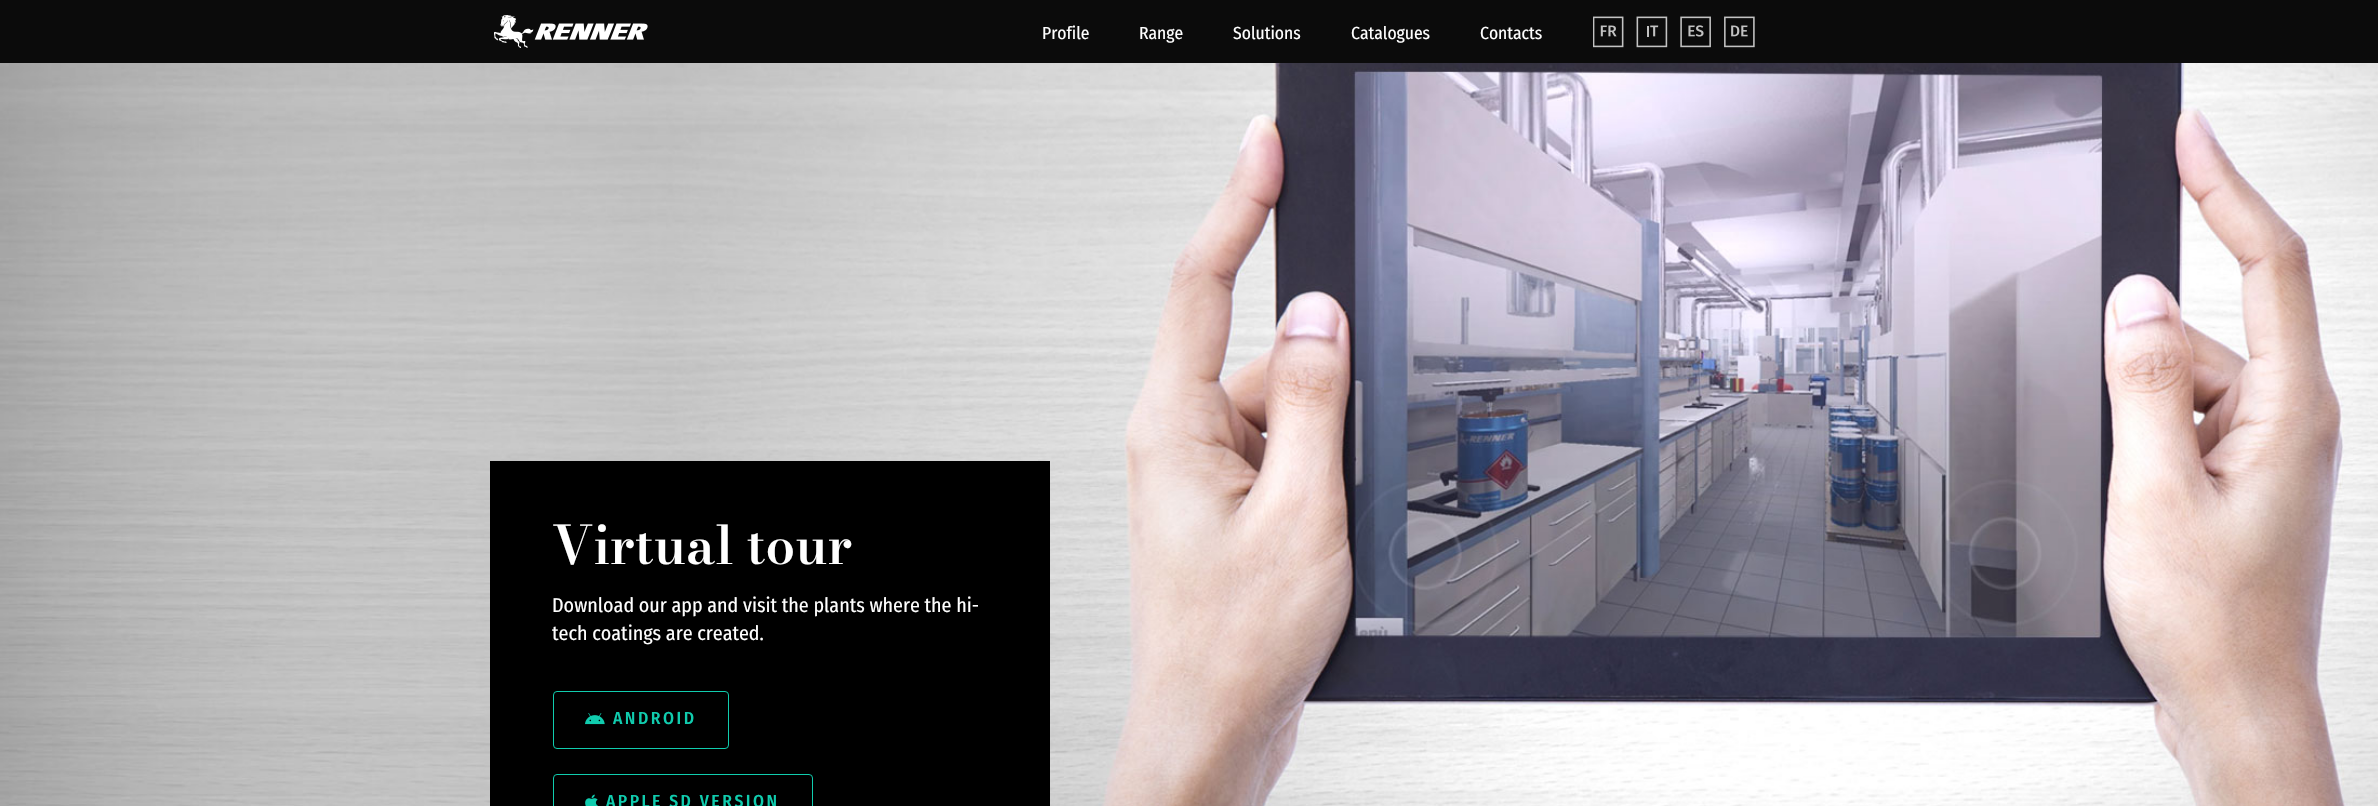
void draw(SkCanvas* canvas) {
    SkPaint paint;
    paint.setAntiAlias(true);
    auto spacedText = [&](const char* s, float x, float y, const SkFont& font, const SkPaint& ink, float letter, float word) {
        std::vector<SkGlyphID> glyphs(font.countText(s, strlen(s), SkTextEncoding::kUTF8));
        std::vector<float> xs(glyphs.size());
        font.textToGlyphs(s, strlen(s), SkTextEncoding::kUTF8, glyphs);
        font.getXPos(glyphs, xs, x);
        float extra = 0;
        for (size_t i = 0; i < glyphs.size(); i++) {
            xs[i] += extra;
            extra += letter + word * (glyphs[i] == font.unicharToGlyph(' '));
        }
        canvas->drawTextBlob(SkTextBlob::MakeFromPosHGlyphs(glyphs, xs, y, font), 0, 0, ink);
    };
    canvas->clear(0xFFFFFFFF);
    paint.setColor(0xFF0B0B0B);
    canvas->drawRect(SkRect::MakeXYWH(0, 0, 2378, 63), paint);
    canvas->drawImageRect(SkImages::DeferredFromEncodedData(SkData::MakeFromFileName("img1.png")), SkRect::MakeXYWH(494, 15, 154, 33), SkSamplingOptions());
    SkFont font1(fontMgr->matchFamilyStyle("Fira Sans Condensed", SkFontStyle::Normal()), 17.5f);
    font1.setSubpixel(true);
    paint.setColor(0xFFFFFFFF);
    canvas->drawString("Profile", 1042, 39, font1, paint);
    canvas->drawString("Range", 1139, 39, font1, paint);
    canvas->drawString("Solutions", 1233, 39, font1, paint);
    canvas->drawString("Catalogues", 1351, 39, font1, paint);
    canvas->drawString("Contacts", 1480, 39, font1, paint);
    canvas->drawImageRect(SkImages::DeferredFromEncodedData(SkData::MakeFromFileName("img2.png")), SkRect::MakeXYWH(1593, 16, 31, 32), SkSamplingOptions());
    canvas->drawImageRect(SkImages::DeferredFromEncodedData(SkData::MakeFromFileName("img3.png")), SkRect::MakeXYWH(1636, 16, 32, 32), SkSamplingOptions());
    canvas->drawImageRect(SkImages::DeferredFromEncodedData(SkData::MakeFromFileName("img4.png")), SkRect::MakeXYWH(1680, 16, 31, 32), SkSamplingOptions());
    canvas->drawImageRect(SkImages::DeferredFromEncodedData(SkData::MakeFromFileName("img5.png")), SkRect::MakeXYWH(1724, 16, 31, 32), SkSamplingOptions());
    canvas->drawImageRect(SkImages::DeferredFromEncodedData(SkData::MakeFromFileName("img6.png")), SkRect::MakeXYWH(0, 63, 2378, 743), SkSamplingOptions());
    paint.setColor(0xFF000000);
    canvas->drawRect(SkRect::MakeXYWH(490, 461, 560, 345), paint);
    SkFont font2(fontMgr->matchFamilyStyle("Bodoni Moda", SkFontStyle(600, SkFontStyle::kNormal_Width, SkFontStyle::kUpright_Slant)), 52.5f);
    font2.setSubpixel(true);
    paint.setColor(0xFFFFFFFF);
    canvas->drawString("Virtual tour", 552, 564, font2, paint);
    SkFont font3(fontMgr->matchFamilyStyle("Fira Sans Condensed", SkFontStyle::Normal()), 20);
    font3.setSubpixel(true);
    canvas->drawString("Download our app and visit the plants where the hi-", 552, 612, font3, paint);
    canvas->drawString("tech coatings are created.", 552, 640, font3, paint);
    paint.setStyle(SkPaint::kStroke_Style);
    paint.setStrokeWidth(1);
    paint.setColor(0xFF10CCAE);
    canvas->drawRoundRect(SkRect::MakeXYWH(553.5f, 691.5f, 175, 57), 3.5f, 3.5f, paint);
    canvas->drawImageRect(SkImages::DeferredFromEncodedData(SkData::MakeFromFileName("img7.png")), SkRect::MakeXYWH(585, 713, 20, 12), SkSamplingOptions());
    SkFont font4(fontMgr->matchFamilyStyle("Fira Sans Condensed", SkFontStyle(500, SkFontStyle::kNormal_Width, SkFontStyle::kUpright_Slant)), 17.5f);
    font4.setSubpixel(true);
    paint.setStyle(SkPaint::kFill_Style);
    spacedText("ANDROID", 613, 724, font4, paint, 2.5f, 0);
    paint.setStyle(SkPaint::kStroke_Style);
    canvas->drawRoundRect(SkRect::MakeXYWH(553.5f, 774.5f, 259, 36), 3.5f, 3.5f, paint);
    canvas->drawImageRect(SkImages::DeferredFromEncodedData(SkData::MakeFromFileName("img8.png")), SkRect::MakeXYWH(585, 794, 13, 12), SkSamplingOptions());
    paint.setStyle(SkPaint::kFill_Style);
    spacedText("APPLE SD VERSION", 606, 807, font4, paint, 2.5f, 0);
}
